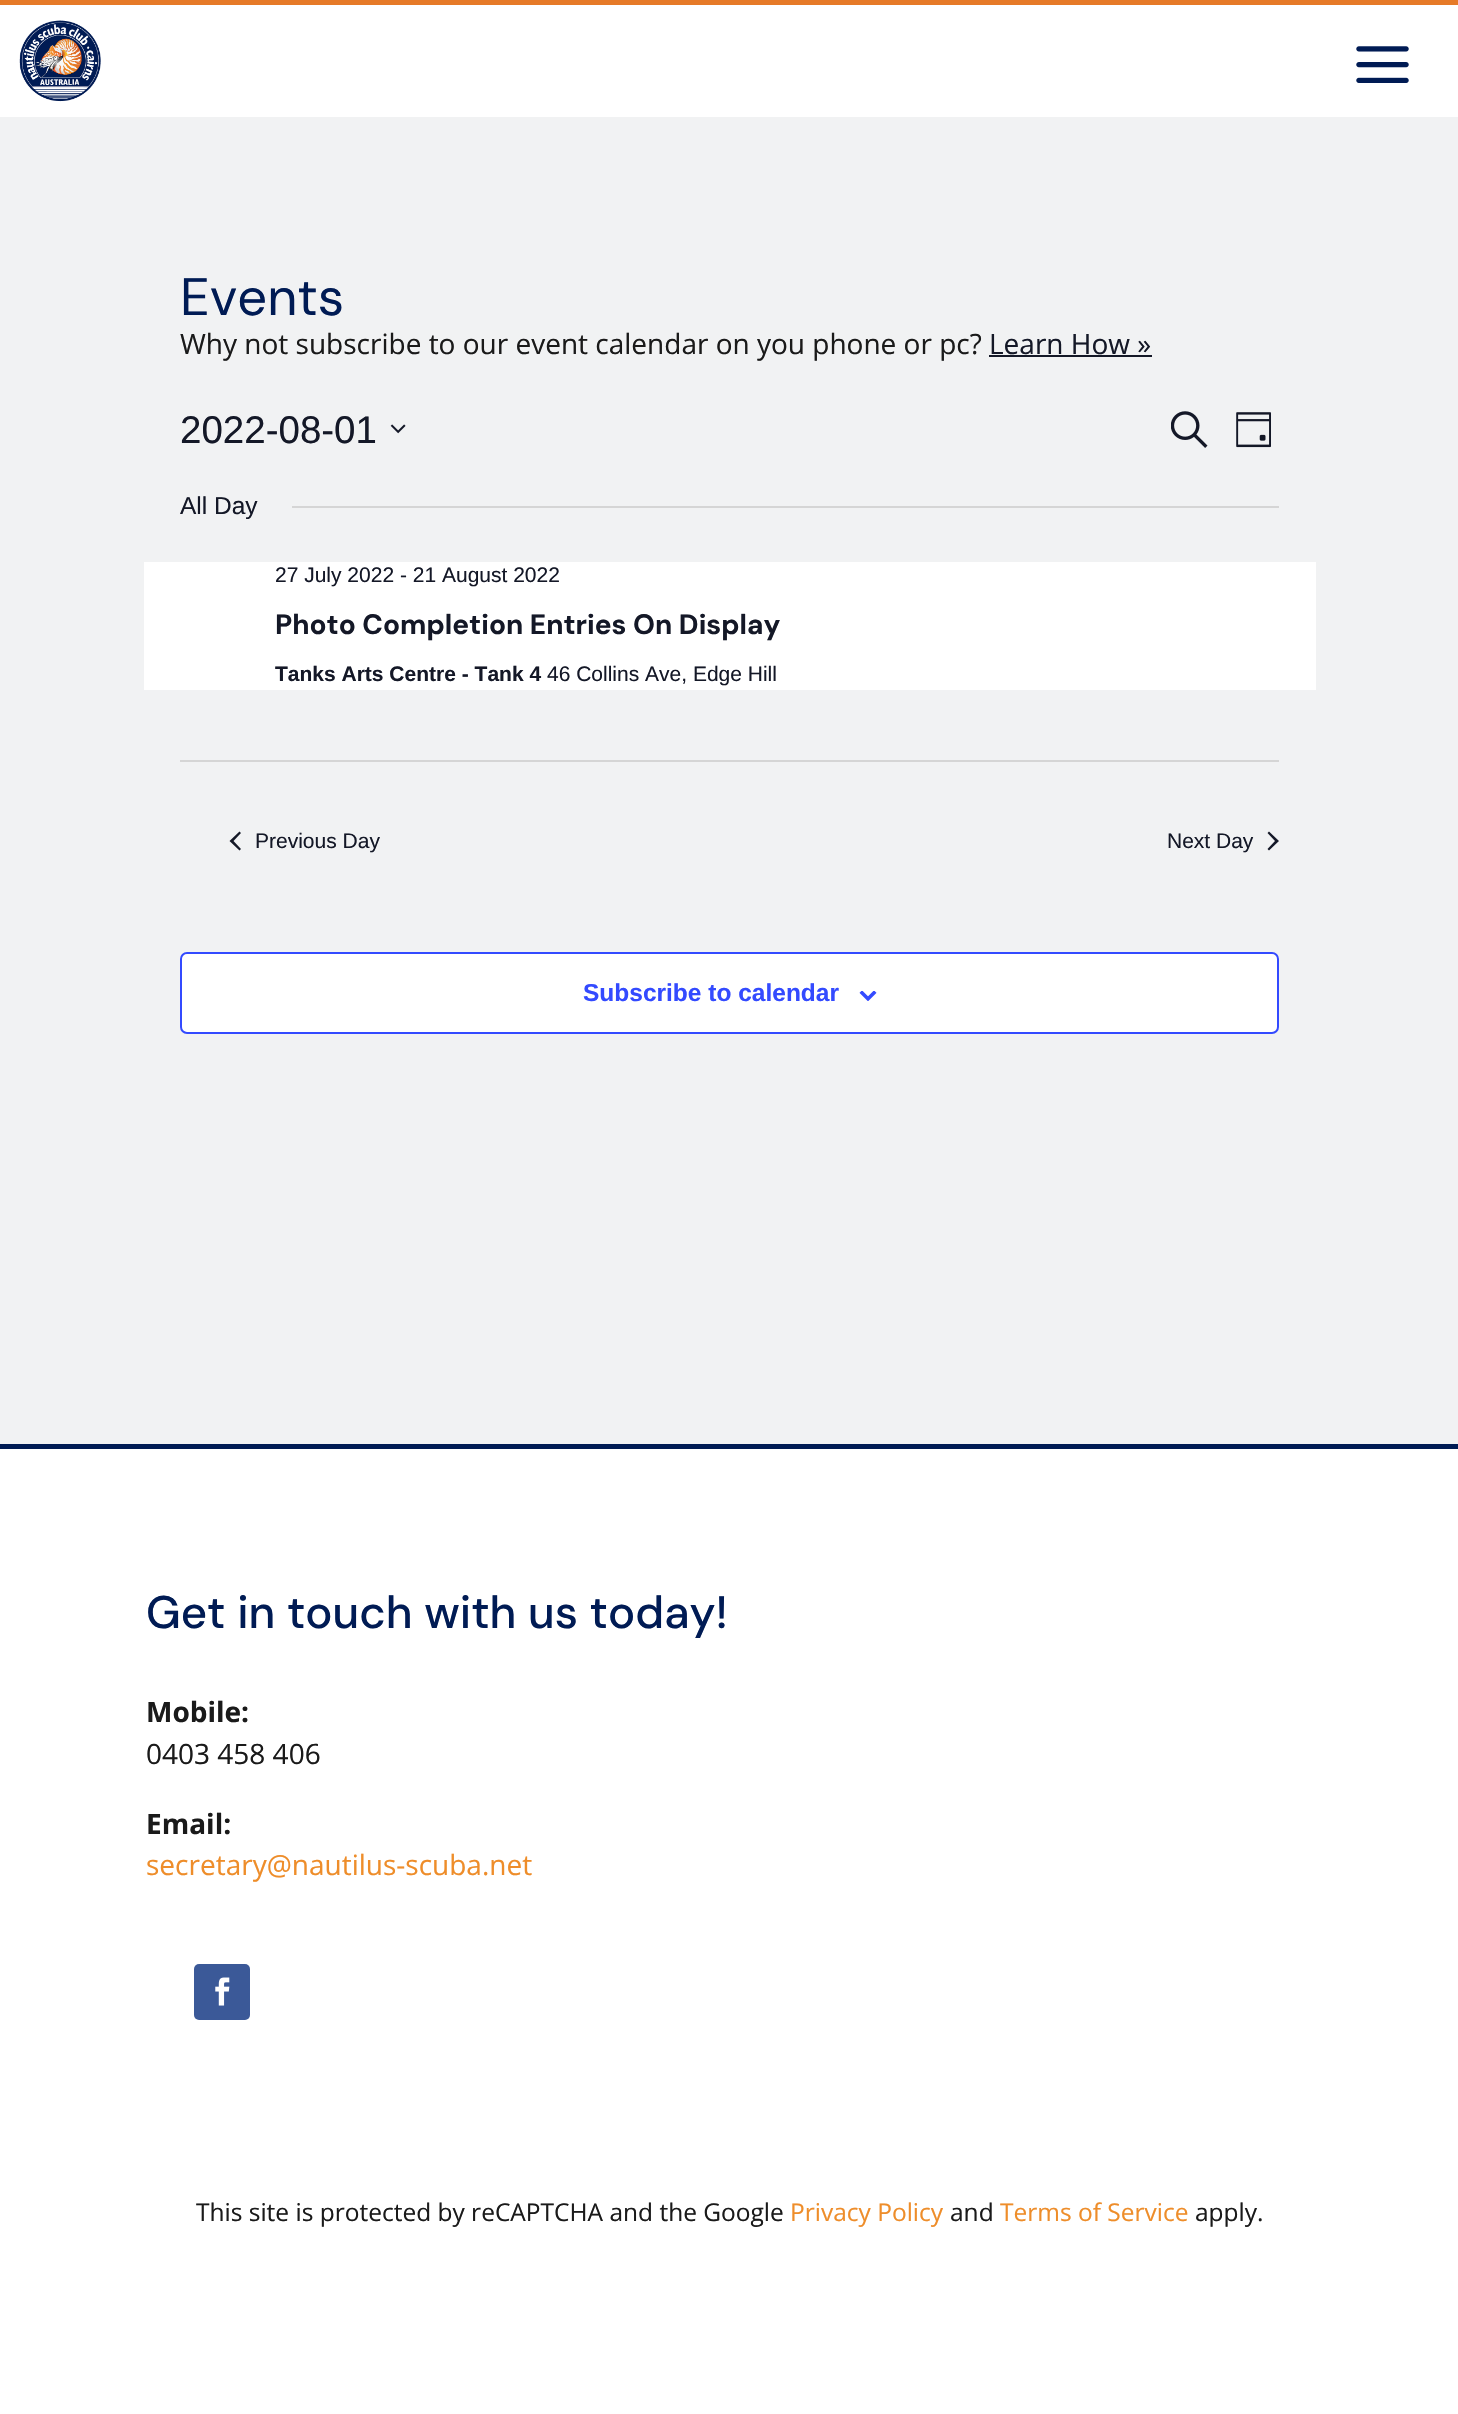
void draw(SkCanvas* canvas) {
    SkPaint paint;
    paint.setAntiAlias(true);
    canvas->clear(0xFFFFFFFF);
    paint.setColor(0xFFF1F2F3);
    canvas->drawRect(SkRect::MakeXYWH(0, 117, 1458, 1327), paint);
    paint.setColor(0xFFE67A28);
    canvas->drawRect(SkRect::MakeXYWH(0, 0, 1458, 5), paint);
    canvas->drawImageRect(SkImages::DeferredFromEncodedData(SkData::MakeFromFileName("img1.png")), SkRect::MakeXYWH(19, 20, 82, 82), SkSamplingOptions());
    canvas->drawImageRect(SkImages::DeferredFromEncodedData(SkData::MakeFromFileName("img2.png")), SkRect::MakeXYWH(1356, 46, 53, 37), SkSamplingOptions());
    SkFont font1(fontMgr->matchFamilyStyle("DM Sans", SkFontStyle::Normal()), 52.5f);
    font1.setSubpixel(true);
    paint.setColor(0xFF001B54);
    canvas->drawString("Events", 180, 315, font1, paint);
    SkFont font2(fontMgr->matchFamilyStyle("Open Sans", SkFontStyle::Normal()), 28);
    font2.setSubpixel(true);
    paint.setColor(0xFF1A1A1A);
    canvas->drawString("Why not subscribe to our event calendar on you phone or pc?", 180, 354, font2, paint);
    paint.setColor(0xFF141827);
    canvas->drawString("Learn How »", 989, 354, font2, paint);
    canvas->drawRect(SkRect::MakeXYWH(989, 355, 163, 2), paint);
    SkFont font3(fontMgr->matchFamilyStyle("Liberation Sans", SkFontStyle::Normal()), 38.5f);
    font3.setSubpixel(true);
    canvas->drawString("2022-08-01", 180, 443, font3, paint);
    canvas->drawImageRect(SkImages::DeferredFromEncodedData(SkData::MakeFromFileName("img3.png")), SkRect::MakeXYWH(390, 424, 16, 10), SkSamplingOptions());
    canvas->drawImageRect(SkImages::DeferredFromEncodedData(SkData::MakeFromFileName("img4.png")), SkRect::MakeXYWH(1171, 411, 37, 37), SkSamplingOptions());
    canvas->drawImageRect(SkImages::DeferredFromEncodedData(SkData::MakeFromFileName("img5.png")), SkRect::MakeXYWH(1236, 412, 35, 36), SkSamplingOptions());
    SkFont font4(fontMgr->matchFamilyStyle("Liberation Sans", SkFontStyle::Normal()), 24.5f);
    font4.setSubpixel(true);
    canvas->drawString("All Day", 180, 514, font4, paint);
    paint.setColor(0xFFD5D5D5);
    canvas->drawRect(SkRect::MakeXYWH(292, 506, 987, 2), paint);
    paint.setColor(0xFFFFFFFF);
    canvas->drawRect(SkRect::MakeXYWH(144, 562, 1172, 128), paint);
    SkFont font5(fontMgr->matchFamilyStyle("Liberation Sans", SkFontStyle::Normal()), 21);
    font5.setSubpixel(true);
    paint.setColor(0xFF141827);
    canvas->drawString("27 July 2022 - 21 August 2022", 275, 582, font5, paint);
    SkFont font6(fontMgr->matchFamilyStyle("DM Sans", SkFontStyle::Bold()), 28);
    font6.setSubpixel(true);
    canvas->drawString("Photo Completion Entries On Display", 275, 634, font6, paint);
    SkFont font7(fontMgr->matchFamilyStyle("Liberation Sans", SkFontStyle::Bold()), 21);
    font7.setSubpixel(true);
    canvas->drawString("Tanks Arts Centre - Tank 4", 275, 681, font7, paint);
    canvas->drawString("46 Collins Ave, Edge Hill", 547, 681, font5, paint);
    paint.setColor(0xFFD5D5D5);
    canvas->drawRect(SkRect::MakeXYWH(180, 760, 1099, 2), paint);
    paint.setColor(0xFF141827);
    canvas->drawPath(SkPathBuilder().moveTo(241, 849).lineTo(239.5f, 850.5f).lineTo(229.5f, 841).lineTo(239.5f, 831.5f).lineTo(241, 833).lineTo(233.5f, 841).close().detach(), paint);
    canvas->drawString("Previous Day", 255, 848, font5, paint);
    canvas->drawString("Next Day", 1167, 848, font5, paint);
    canvas->drawPath(SkPathBuilder().moveTo(1267.5f, 833).lineTo(1269, 831.5f).lineTo(1279, 841).lineTo(1269, 850.5f).lineTo(1267.5f, 849).lineTo(1275, 841).close().detach(), paint);
    paint.setColor(0xFFFFFFFF);
    canvas->drawRoundRect(SkRect::MakeXYWH(181, 953, 1097, 80), 6, 6, paint);
    paint.setStyle(SkPaint::kStroke_Style);
    paint.setStrokeWidth(2);
    paint.setColor(0xFF334AFF);
    canvas->drawRoundRect(SkRect::MakeXYWH(181, 953, 1097, 80), 6, 6, paint);
    SkFont font8(fontMgr->matchFamilyStyle("Liberation Sans", SkFontStyle::Bold()), 24.5f);
    font8.setSubpixel(true);
    paint.setStyle(SkPaint::kFill_Style);
    canvas->drawString("Subscribe to calendar", 583, 1001, font8, paint);
    canvas->drawImageRect(SkImages::DeferredFromEncodedData(SkData::MakeFromFileName("img6.png")), SkRect::MakeXYWH(859, 991, 18, 10), SkSamplingOptions());
    paint.setColor(0xFF001B54);
    canvas->drawRect(SkRect::MakeXYWH(0, 1444, 1458, 5), paint);
    SkFont font9(fontMgr->matchFamilyStyle("DM Sans", SkFontStyle(500, SkFontStyle::kNormal_Width, SkFontStyle::kUpright_Slant)), 45.5f);
    font9.setSubpixel(true);
    canvas->drawString("Get in touch with us today!", 146, 1628, font9, paint);
    SkFont font10(fontMgr->matchFamilyStyle("Open Sans", SkFontStyle::Bold()), 28);
    font10.setSubpixel(true);
    paint.setColor(0xFF1A1A1A);
    canvas->drawString("Mobile:", 146, 1722, font10, paint);
    canvas->drawString("0403 458 406", 146, 1764, font2, paint);
    canvas->drawString("Email:", 146, 1834, font10, paint);
    paint.setColor(0xFFEE8D2A);
    canvas->drawString("secretary@nautilus-scuba.net", 146, 1875, font2, paint);
    paint.setColor(0xFF3B5998);
    canvas->drawRoundRect(SkRect::MakeXYWH(194, 1964, 56, 56), 5, 5, paint);
    canvas->drawImageRect(SkImages::DeferredFromEncodedData(SkData::MakeFromFileName("img7.png")), SkRect::MakeXYWH(215, 1977, 15, 29), SkSamplingOptions());
    SkFont font11(fontMgr->matchFamilyStyle("Open Sans", SkFontStyle::Normal()), 24.5f);
    font11.setSubpixel(true);
    paint.setColor(0xFF1A1A1A);
    canvas->drawString("This site is protected by reCAPTCHA and the Google", 196, 2221, font11, paint);
    paint.setColor(0xFFEE8D2A);
    canvas->drawString("Privacy Policy", 790, 2221, font11, paint);
    paint.setColor(0xFF1A1A1A);
    canvas->drawString("and", 950, 2221, font11, paint);
    paint.setColor(0xFFEE8D2A);
    canvas->drawString("Terms of Service", 1000, 2221, font11, paint);
    paint.setColor(0xFF1A1A1A);
    canvas->drawString("apply.", 1195, 2221, font11, paint);
}
